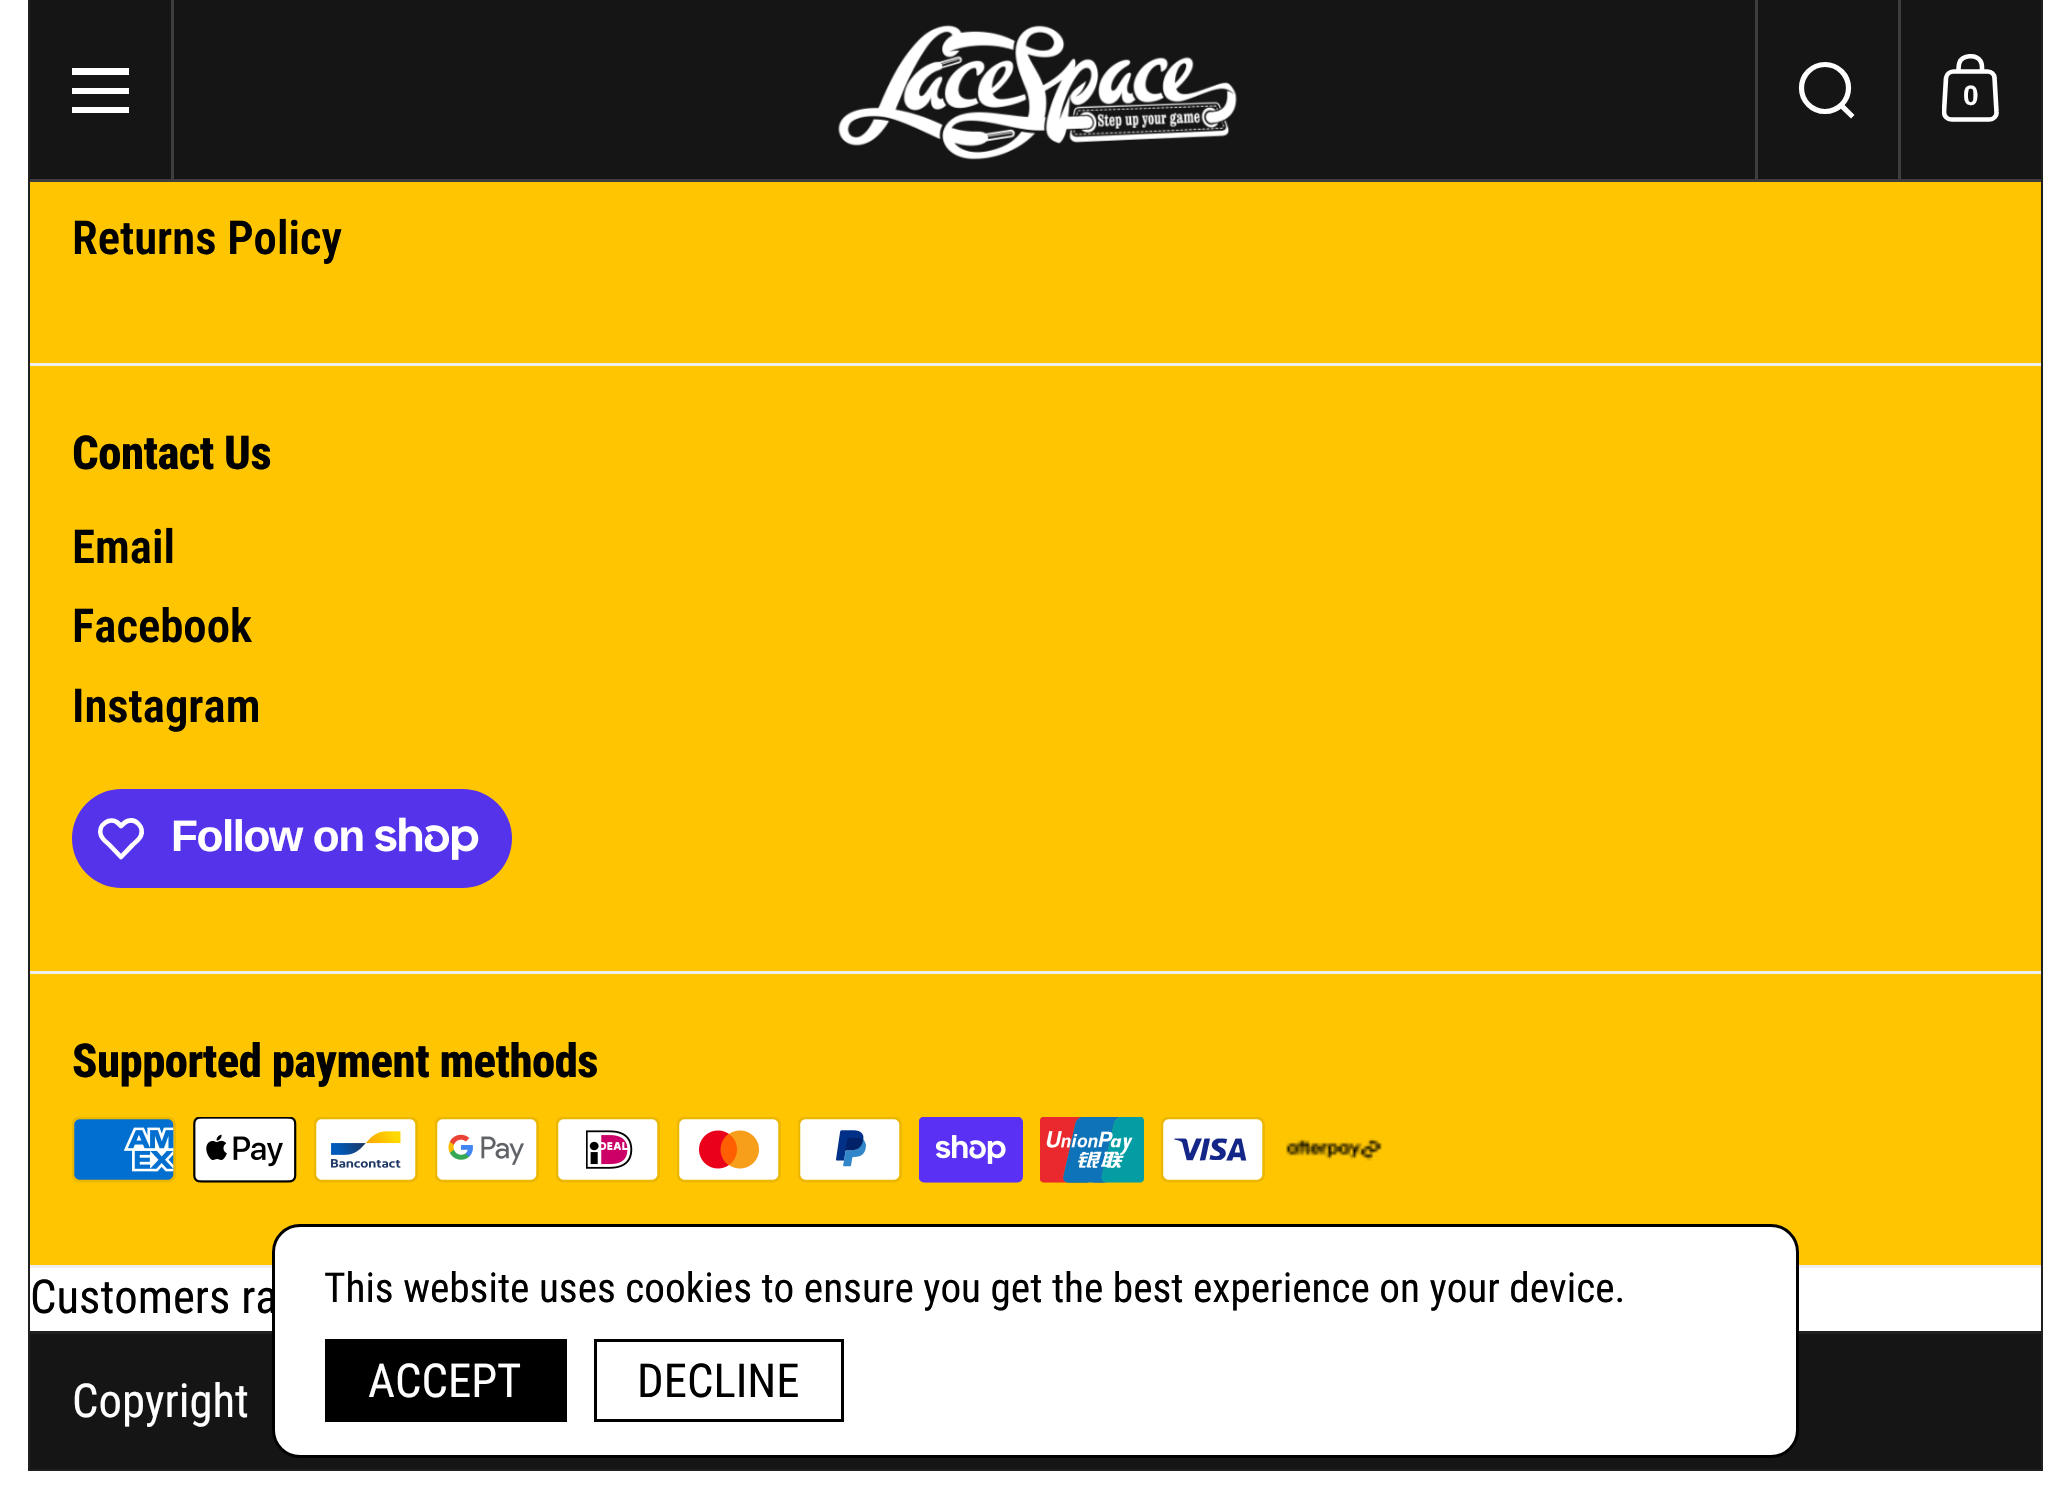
void draw(SkCanvas* canvas) {
    SkPaint paint;
    paint.setAntiAlias(true);
    auto spacedText = [&](const char* s, float x, float y, const SkFont& font, const SkPaint& ink, float letter, float word) {
        std::vector<SkGlyphID> glyphs(font.countText(s, strlen(s), SkTextEncoding::kUTF8));
        std::vector<float> xs(glyphs.size());
        font.textToGlyphs(s, strlen(s), SkTextEncoding::kUTF8, glyphs);
        font.getXPos(glyphs, xs, x);
        float extra = 0;
        for (size_t i = 0; i < glyphs.size(); i++) {
            xs[i] += extra;
            extra += letter + word * (glyphs[i] == font.unicharToGlyph(' '));
        }
        canvas->drawTextBlob(SkTextBlob::MakeFromPosHGlyphs(glyphs, xs, y, font), 0, 0, ink);
    };
    canvas->clear(0xFFFFFFFF);
    paint.setStyle(SkPaint::kStroke_Style);
    paint.setStrokeWidth(3);
    paint.setColor(0xFF202020);
    canvas->drawRect(SkRect::MakeXYWH(29.5f, -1.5f, 2012, 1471), paint);
    paint.setStyle(SkPaint::kFill_Style);
    paint.setColor(0xFF151515);
    canvas->drawRect(SkRect::MakeXYWH(30, 0, 2011, 179), paint);
    paint.setColor(0xFF3E3E3E);
    canvas->drawRect(SkRect::MakeXYWH(171, 0, 3, 179), paint);
    paint.setColor(0xFFFFFFFF);
    canvas->drawRect(SkRect::MakeXYWH(72, 68, 57, 7), paint);
    canvas->drawRect(SkRect::MakeXYWH(72, 88, 57, 6), paint);
    canvas->drawRect(SkRect::MakeXYWH(72, 107, 57, 6), paint);
    canvas->drawImageRect(SkImages::DeferredFromEncodedData(SkData::MakeFromFileName("img1.png")), SkRect::MakeXYWH(838, 24, 400, 136), SkSamplingOptions());
    paint.setColor(0xFF3E3E3E);
    canvas->drawRect(SkRect::MakeXYWH(1755, 0, 3, 179), paint);
    paint.setStyle(SkPaint::kStroke_Style);
    paint.setStrokeWidth(5.2f);
    paint.setColor(0xFFFFFFFF);
    canvas->drawCircle(1825, 88, 23.5f, paint);
    paint.setStyle(SkPaint::kFill_Style);
    canvas->drawPath(SkPathBuilder().moveTo(1838.5f, 106.5f).lineTo(1842, 102.5f).lineTo(1854.5f, 115).lineTo(1851, 118.5f).close().detach(), paint);
    paint.setColor(0xFF3E3E3E);
    canvas->drawRect(SkRect::MakeXYWH(1898, 0, 3, 179), paint);
    canvas->save();
    canvas->clipRect(SkRect::MakeXYWH(1942, 52, 57, 72));
    paint.setStyle(SkPaint::kStroke_Style);
    paint.setStrokeWidth(4.6f);
    paint.setColor(0xFFFFFFFF);
    canvas->drawPath(SkPathBuilder().moveTo(1958.5f, 71.5f).lineTo(1953.5f, 71.5f).cubicTo(1949.5f, 71.5f, 1946.5f, 74.5f, 1946, 78).lineTo(1944, 112).cubicTo(1944, 116, 1947, 119.5f, 1951.5f, 119.5f).lineTo(1989.5f, 119.5f).cubicTo(1993.5f, 119.5f, 1997, 116, 1996.5f, 112).lineTo(1994.5f, 78).cubicTo(1994.5f, 74.5f, 1991.5f, 71.5f, 1987.5f, 71.5f).lineTo(1982, 71.5f).moveTo(1958.5f, 71.5f).lineTo(1982, 71.5f).moveTo(1958.5f, 71.5f).cubicTo(1958.5f, 68.5f, 1958.5f, 65, 1959.5f, 62.5f).cubicTo(1962.5f, 55, 1976, 54, 1980.5f, 61).cubicTo(1982.5f, 64, 1982, 67.5f, 1982, 71.5f).detach(), paint);
    canvas->restore();
    SkFont font1(fontMgr->matchFamilyStyle("Liberation Sans", SkFontStyle::Bold()), 28);
    font1.setSubpixel(true);
    paint.setStyle(SkPaint::kFill_Style);
    canvas->drawString("0", 1963, 105, font1, paint);
    paint.setColor(0xFF3E3E3E);
    canvas->drawRect(SkRect::MakeXYWH(30, 179, 2011, 3), paint);
    paint.setColor(0xFFFEC500);
    canvas->drawRect(SkRect::MakeXYWH(30, 182, 2011, 1083), paint);
    SkFont font2(fontMgr->matchFamilyStyle("Roboto Condensed", SkFontStyle(600, SkFontStyle::kNormal_Width, SkFontStyle::kUpright_Slant)), 46.75f);
    font2.setSubpixel(true);
    paint.setColor(0xFF000000);
    canvas->drawString("Returns Policy", 72, 254, font2, paint);
    paint.setColor(0xFFEFEFEF);
    canvas->drawRect(SkRect::MakeXYWH(30, 363, 2011, 3), paint);
    SkFont font3(fontMgr->matchFamilyStyle("Roboto Condensed", SkFontStyle(800, SkFontStyle::kNormal_Width, SkFontStyle::kUpright_Slant)), 46.75f);
    font3.setSubpixel(true);
    paint.setColor(0xFF000000);
    spacedText("Contact Us", 72, 469, font3, paint, -0.5f, 0);
    canvas->drawString("Email", 72, 563, font2, paint);
    canvas->drawString("Facebook", 72, 642, font2, paint);
    canvas->drawString("Instagram", 72, 722, font2, paint);
    paint.setColor(0xFF5433EB);
    canvas->drawRoundRect(SkRect::MakeXYWH(72, 789, 440, 99), 49.5f, 49.5f, paint);
    paint.setStyle(SkPaint::kStroke_Style);
    paint.setStrokeJoin(SkPaint::kRound_Join);
    paint.setColor(0xFFFFFFFF);
    canvas->drawPath(SkPathBuilder().moveTo(118.5f, 823.5f).lineTo(121, 826).cubicTo(123, 824, 125, 822, 127.5f, 821).cubicTo(136, 818, 144, 827, 141, 835.5f).cubicTo(139.5f, 839.5f, 135.5f, 842, 132.5f, 845).lineTo(121, 857).lineTo(109.5f, 845).cubicTo(106.5f, 842, 102.5f, 839.5f, 101, 835.5f).cubicTo(97, 825, 110.5f, 815.5f, 118.5f, 823.5f).close().detach(), paint);
    SkFont font4(fontMgr->matchFamilyStyle("Liberation Sans", SkFontStyle::Bold()), 44);
    font4.setSubpixel(true);
    paint.setStyle(SkPaint::kFill_Style);
    spacedText("Follow on", 171, 851, font4, paint, -1.4f, 0);
    canvas->drawImageRect(SkImages::DeferredFromEncodedData(SkData::MakeFromFileName("img2.png")), SkRect::MakeXYWH(375, 817, 104, 43), SkSamplingOptions());
    paint.setColor(0xFFEFEFEF);
    canvas->drawRect(SkRect::MakeXYWH(30, 971, 2011, 3), paint);
    paint.setColor(0xFF000000);
    spacedText("Supported payment methods", 72, 1077, font3, paint, -0.5f, 0);
    canvas->drawImageRect(SkImages::DeferredFromEncodedData(SkData::MakeFromFileName("img3.png")), SkRect::MakeXYWH(72, 1117, 104, 66), SkSamplingOptions());
    canvas->drawImageRect(SkImages::DeferredFromEncodedData(SkData::MakeFromFileName("img4.png")), SkRect::MakeXYWH(193, 1117, 104, 66), SkSamplingOptions());
    canvas->drawImageRect(SkImages::DeferredFromEncodedData(SkData::MakeFromFileName("img5.png")), SkRect::MakeXYWH(314, 1117, 104, 66), SkSamplingOptions());
    canvas->drawImageRect(SkImages::DeferredFromEncodedData(SkData::MakeFromFileName("img6.png")), SkRect::MakeXYWH(435, 1117, 104, 66), SkSamplingOptions());
    canvas->drawImageRect(SkImages::DeferredFromEncodedData(SkData::MakeFromFileName("img7.png")), SkRect::MakeXYWH(556, 1117, 104, 66), SkSamplingOptions());
    canvas->drawImageRect(SkImages::DeferredFromEncodedData(SkData::MakeFromFileName("img8.png")), SkRect::MakeXYWH(677, 1117, 104, 66), SkSamplingOptions());
    canvas->drawImageRect(SkImages::DeferredFromEncodedData(SkData::MakeFromFileName("img9.png")), SkRect::MakeXYWH(798, 1117, 104, 66), SkSamplingOptions());
    canvas->drawImageRect(SkImages::DeferredFromEncodedData(SkData::MakeFromFileName("img10.png")), SkRect::MakeXYWH(919, 1117, 104, 66), SkSamplingOptions());
    canvas->drawImageRect(SkImages::DeferredFromEncodedData(SkData::MakeFromFileName("img11.png")), SkRect::MakeXYWH(1040, 1117, 104, 66), SkSamplingOptions());
    canvas->drawImageRect(SkImages::DeferredFromEncodedData(SkData::MakeFromFileName("img12.png")), SkRect::MakeXYWH(1161, 1117, 104, 66), SkSamplingOptions());
    canvas->drawImageRect(SkImages::DeferredFromEncodedData(SkData::MakeFromFileName("img13.png")), SkRect::MakeXYWH(1286, 1138, 96, 23), SkSamplingOptions());
    paint.setColor(0xFFEFEFEF);
    canvas->drawRect(SkRect::MakeXYWH(30, 1265, 2011, 3), paint);
    paint.setColor(0xFFFFFFFF);
    canvas->drawRect(SkRect::MakeXYWH(30, 1268, 2011, 63), paint);
    SkFont font5(fontMgr->matchFamilyStyle("Roboto Condensed", SkFontStyle::Normal()), 46.75f);
    font5.setSubpixel(true);
    paint.setColor(0xFF000000);
    canvas->drawString("Customers ra", 30, 1313, font5, paint);
    paint.setColor(0xFF202020);
    canvas->drawRect(SkRect::MakeXYWH(30, 1331, 2011, 3), paint);
    paint.setColor(0xFF151515);
    canvas->drawRect(SkRect::MakeXYWH(30, 1334, 2011, 135), paint);
    paint.setColor(0xFFFFFFFF);
    canvas->drawString("Copyright", 72, 1417, font5, paint);
    canvas->drawRoundRect(SkRect::MakeXYWH(273.5f, 1225.5f, 1524, 231), 26.5f, 26.5f, paint);
    paint.setStyle(SkPaint::kStroke_Style);
    paint.setStrokeWidth(3);
    paint.setStrokeJoin(SkPaint::kMiter_Join);
    paint.setColor(0xFF000000);
    canvas->drawRoundRect(SkRect::MakeXYWH(273.5f, 1225.5f, 1524, 231), 26.5f, 26.5f, paint);
    SkFont font6(fontMgr->matchFamilyStyle("Roboto Condensed", SkFontStyle::Normal()), 41.25f);
    font6.setSubpixel(true);
    paint.setStyle(SkPaint::kFill_Style);
    canvas->drawString("This website uses cookies to ensure you get the best experience on your device.", 324, 1302, font6, paint);
    canvas->drawRect(SkRect::MakeXYWH(325, 1339, 242, 83), paint);
    paint.setColor(0xFFFFFFFF);
    canvas->drawString("ACCEPT", 368, 1397, font5, paint);
    paint.setStyle(SkPaint::kStroke_Style);
    paint.setColor(0xFF000000);
    canvas->drawRect(SkRect::MakeXYWH(595.5f, 1340.5f, 247, 80), paint);
    paint.setStyle(SkPaint::kFill_Style);
    canvas->drawString("DECLINE", 637, 1397, font5, paint);
}
